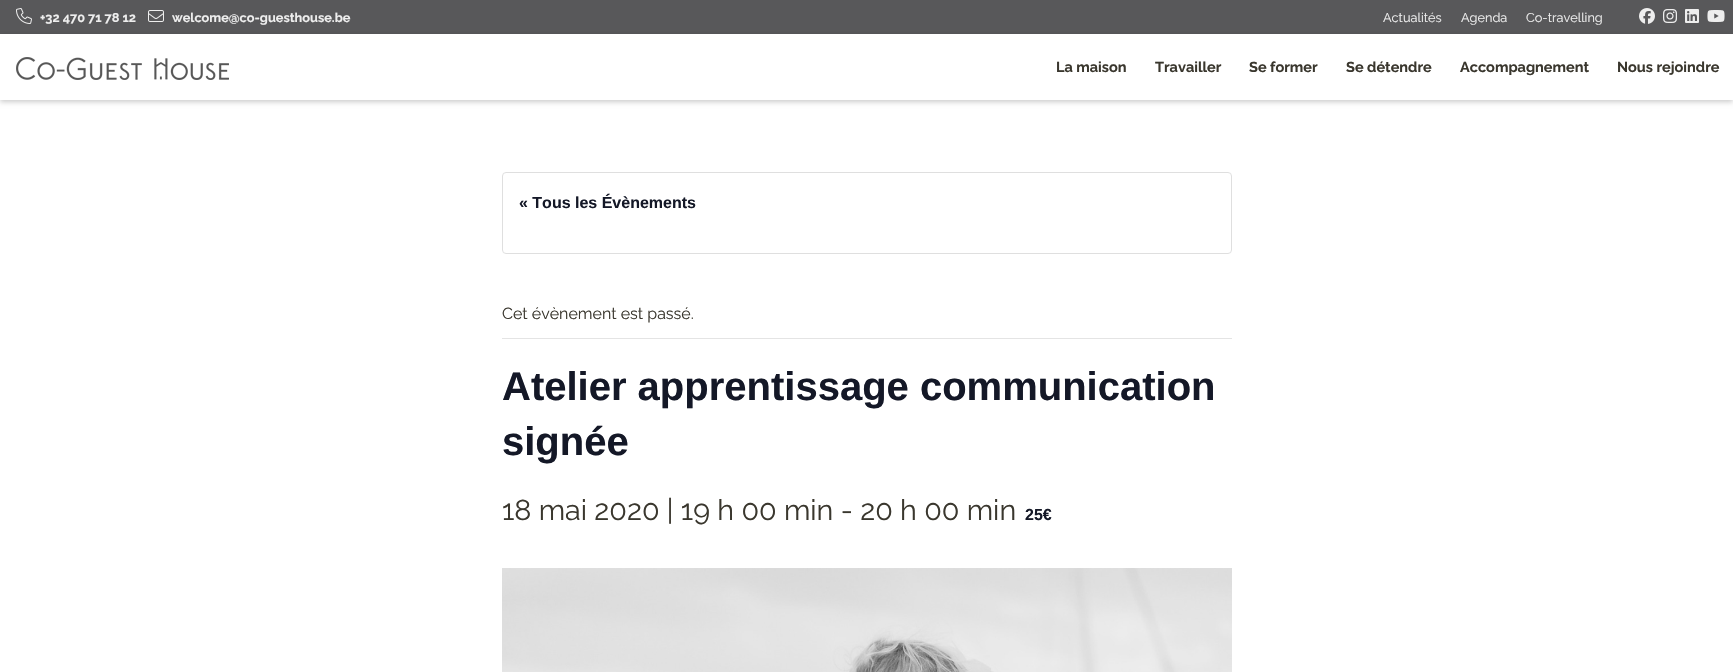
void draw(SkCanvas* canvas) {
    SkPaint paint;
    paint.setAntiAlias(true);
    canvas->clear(0xFFFFFFFF);
    paint.setColor(0xFF58585A);
    canvas->drawRect(SkRect::MakeXYWH(0, 0, 1733, 34), paint);
    canvas->drawImageRect(SkImages::DeferredFromEncodedData(SkData::MakeFromFileName("img1.png")), SkRect::MakeXYWH(16, 8, 16, 16), SkSamplingOptions());
    SkFont font1(fontMgr->matchFamilyStyle("Raleway", SkFontStyle::Bold()), 12.75f);
    font1.setSubpixel(true);
    paint.setColor(0xFFEEEEEE);
    canvas->drawString("+32 470 71 78 12", 40, 22, font1, paint);
    canvas->drawImageRect(SkImages::DeferredFromEncodedData(SkData::MakeFromFileName("img2.png")), SkRect::MakeXYWH(148, 10, 16, 12), SkSamplingOptions());
    canvas->drawString("welcome@co-guesthouse.be", 172, 22, font1, paint);
    SkFont font2(fontMgr->matchFamilyStyle("Raleway", SkFontStyle::Normal()), 12.75f);
    font2.setSubpixel(true);
    canvas->drawString("Actualités", 1383, 22, font2, paint);
    canvas->drawString("Agenda", 1461, 22, font2, paint);
    canvas->drawString("Co-travelling", 1526, 22, font2, paint);
    canvas->drawImageRect(SkImages::DeferredFromEncodedData(SkData::MakeFromFileName("img3.png")), SkRect::MakeXYWH(1639, 8, 16, 16), SkSamplingOptions());
    canvas->drawImageRect(SkImages::DeferredFromEncodedData(SkData::MakeFromFileName("img4.png")), SkRect::MakeXYWH(1663, 9, 14, 14), SkSamplingOptions());
    canvas->drawImageRect(SkImages::DeferredFromEncodedData(SkData::MakeFromFileName("img5.png")), SkRect::MakeXYWH(1685, 9, 14, 14), SkSamplingOptions());
    canvas->drawImageRect(SkImages::DeferredFromEncodedData(SkData::MakeFromFileName("img6.png")), SkRect::MakeXYWH(1707, 10, 18, 12), SkSamplingOptions());
    canvas->save();
    canvas->clipPath(SkPathBuilder(SkPathFillType::kEvenOdd).moveTo(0, 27).lineTo(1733, 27).lineTo(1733, 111).lineTo(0, 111).close().moveTo(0, 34).lineTo(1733, 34).lineTo(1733, 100).lineTo(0, 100).close().detach(), true);
    paint.setColor(0x33000000);
    paint.setMaskFilter(SkMaskFilter::MakeBlur(kNormal_SkBlurStyle, 2.5f));
    canvas->drawRect(SkRect::MakeXYWH(0, 36, 1733, 66), paint);
    paint.setMaskFilter(nullptr);
    canvas->restore();
    canvas->drawImageRect(SkImages::DeferredFromEncodedData(SkData::MakeFromFileName("img7.png")), SkRect::MakeXYWH(16, 57, 213, 23), SkSamplingOptions());
    SkFont font3(fontMgr->matchFamilyStyle("Raleway", SkFontStyle::Bold()), 14.5f);
    font3.setSubpixel(true);
    paint.setColor(0xFF3A372E);
    canvas->drawString("La maison", 1056, 72, font3, paint);
    canvas->drawString("Travailler", 1155, 72, font3, paint);
    canvas->drawString("Se former", 1249, 72, font3, paint);
    canvas->drawString("Se détendre", 1346, 72, font3, paint);
    canvas->drawString("Accompagnement", 1460, 72, font3, paint);
    canvas->drawString("Nous rejoindre", 1617, 72, font3, paint);
    paint.setStyle(SkPaint::kStroke_Style);
    paint.setStrokeWidth(1);
    paint.setColor(0xFFDFDFDF);
    canvas->drawRoundRect(SkRect::MakeXYWH(502.5f, 172.5f, 729, 81), 3.5f, 3.5f, paint);
    SkFont font4(fontMgr->matchFamilyStyle("Liberation Sans", SkFontStyle::Bold()), 16);
    font4.setSubpixel(true);
    paint.setStyle(SkPaint::kFill_Style);
    paint.setColor(0xFF141827);
    canvas->drawString("« Tous les Évènements", 519, 208, font4, paint);
    paint.setColor(0xFFE4E4E4);
    canvas->drawRect(SkRect::MakeXYWH(502, 338, 730, 1), paint);
    SkFont font5(fontMgr->matchFamilyStyle("Raleway", SkFontStyle::Normal()), 16);
    font5.setSubpixel(true);
    paint.setColor(0xFF3A372E);
    canvas->drawString("Cet évènement est passé.", 502, 319, font5, paint);
    SkFont font6(fontMgr->matchFamilyStyle("Liberation Sans", SkFontStyle::Bold()), 40);
    font6.setSubpixel(true);
    paint.setColor(0xFF141827);
    canvas->drawString("Atelier apprentissage communication", 502, 400, font6, paint);
    canvas->drawString("signée", 502, 455, font6, paint);
    SkFont font7(fontMgr->matchFamilyStyle("Raleway", SkFontStyle::Normal()), 28.75f);
    font7.setSubpixel(true);
    paint.setColor(0xFF3A372E);
    canvas->drawString("18 mai 2020 | 19 h 00 min - 20 h 00 min", 502, 520, font7, paint);
    paint.setColor(0xFF141827);
    canvas->drawString("25€", 1025, 520, font4, paint);
    canvas->drawImageRect(SkImages::DeferredFromEncodedData(SkData::MakeFromFileName("img8.png")), SkRect::MakeXYWH(502, 568, 730, 104), SkSamplingOptions());
}
